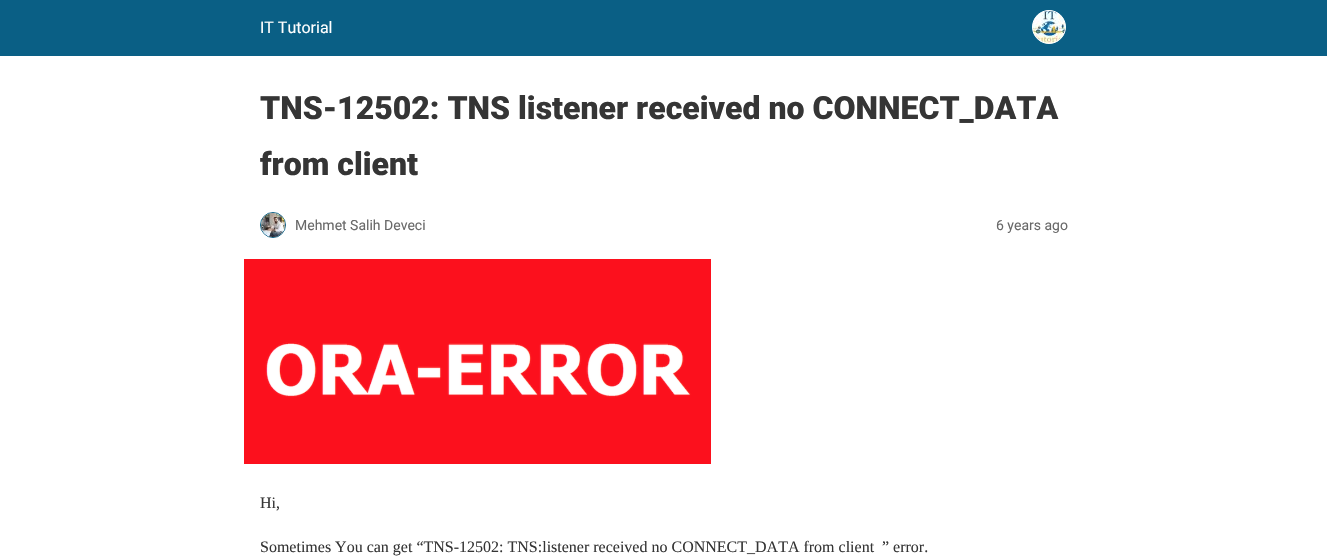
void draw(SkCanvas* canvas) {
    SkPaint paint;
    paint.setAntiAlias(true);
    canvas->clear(0xFFFFFFFF);
    paint.setColor(0xFF0A5F85);
    canvas->drawRect(SkRect::MakeXYWH(0, 0, 1327, 56), paint);
    SkFont font1(fontMgr->matchFamilyStyle("Roboto", SkFontStyle::Normal()), 16);
    font1.setSubpixel(true);
    paint.setColor(0xFFFFFFFF);
    canvas->drawString("IT Tutorial", 260, 33, font1, paint);
    canvas->drawCircle(1049, 27, 16.5f, paint);
    paint.setStyle(SkPaint::kStroke_Style);
    paint.setStrokeWidth(1);
    canvas->drawCircle(1049, 27, 16.5f, paint);
    canvas->drawImageRect(SkImages::DeferredFromEncodedData(SkData::MakeFromFileName("img1.png")), SkRect::MakeXYWH(1033, 11, 32, 32), SkSamplingOptions());
    SkFont font2(fontMgr->matchFamilyStyle("Roboto", SkFontStyle(900, SkFontStyle::kNormal_Width, SkFontStyle::kUpright_Slant)), 32);
    font2.setSubpixel(true);
    paint.setStyle(SkPaint::kFill_Style);
    paint.setColor(0xFF353535);
    canvas->drawString("TNS-12502: TNS listener received no CONNECT_DATA", 260, 119, font2, paint);
    canvas->drawString("from client", 260, 175, font2, paint);
    paint.setStyle(SkPaint::kStroke_Style);
    paint.setColor(0xFF0A5F85);
    canvas->drawCircle(273, 225, 12.5f, paint);
    canvas->drawImageRect(SkImages::DeferredFromEncodedData(SkData::MakeFromFileName("img2.png")), SkRect::MakeXYWH(261, 213, 24, 24), SkSamplingOptions());
    SkFont font3(fontMgr->matchFamilyStyle("Roboto", SkFontStyle::Normal()), 14);
    font3.setSubpixel(true);
    paint.setStyle(SkPaint::kFill_Style);
    paint.setColor(0xFF696969);
    canvas->drawString("Mehmet Salih Deveci", 295, 230, font3, paint);
    canvas->drawString("6 years ago", 996, 230, font3, paint);
    canvas->drawImageRect(SkImages::DeferredFromEncodedData(SkData::MakeFromFileName("img3.png")), SkRect::MakeXYWH(244, 259, 467, 205), SkSamplingOptions());
    SkFont font4(fontMgr->matchFamilyStyle("Liberation Serif", SkFontStyle::Normal()), 16);
    font4.setSubpixel(true);
    paint.setColor(0xFF353535);
    canvas->drawString("Hi,", 260, 508, font4, paint);
    canvas->drawString("Sometimes You can get “TNS-12502: TNS:listener received no CONNECT_DATA from client", 260, 552, font4, paint);
    canvas->drawString("” error.", 882, 552, font4, paint);
}
